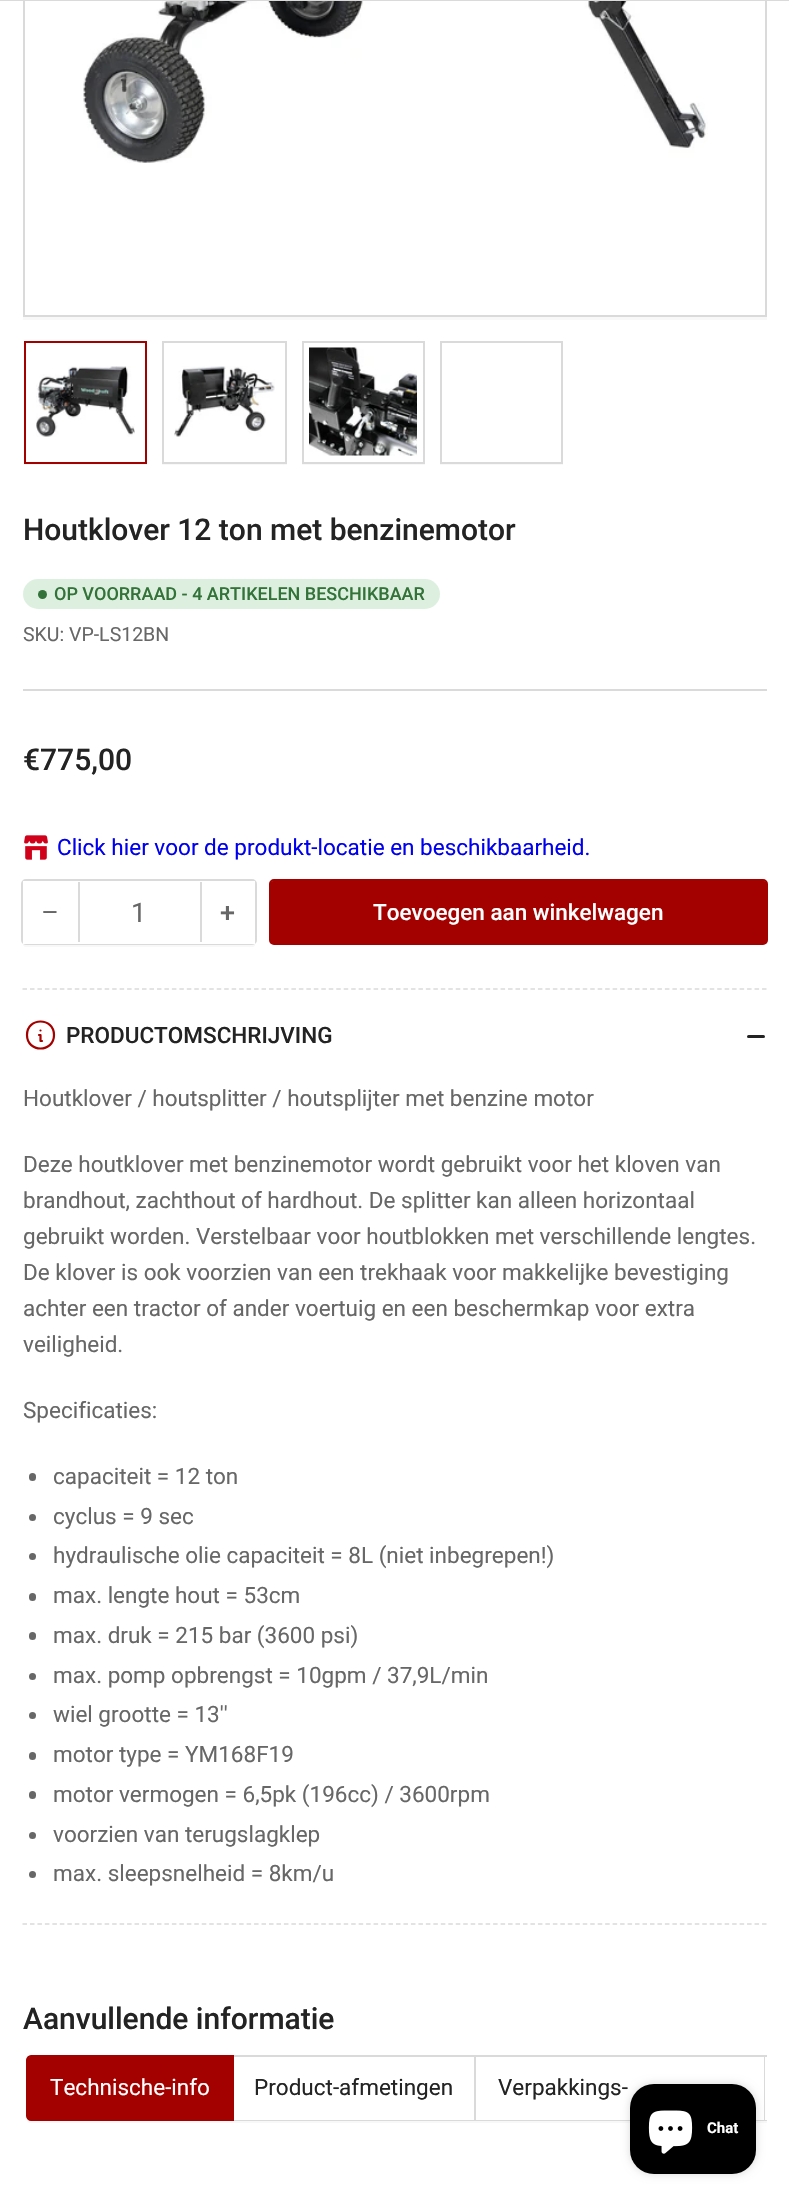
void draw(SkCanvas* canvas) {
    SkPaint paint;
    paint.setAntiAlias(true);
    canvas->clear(0xFFFFFFFF);
    paint.setColor(0xFFF8F8F8);
    canvas->drawPath(SkPathBuilder().moveTo(23, 316).lineTo(23, 320).lineTo(767, 320).lineTo(767, -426).lineTo(766, -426).lineTo(766, 316).close().detach(), paint);
    paint.setStyle(SkPaint::kStroke_Style);
    paint.setStrokeWidth(2);
    paint.setColor(0xFFDADADA);
    canvas->drawRect(SkRect::MakeXYWH(24, -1, 742, 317), paint);
    paint.setStyle(SkPaint::kFill_Style);
    canvas->drawRect(SkRect::MakeXYWH(0, 0, 789, 1), paint);
    canvas->drawImageRect(SkImages::DeferredFromEncodedData(SkData::MakeFromFileName("img1.png")), SkRect::MakeXYWH(83, 1, 625, 162), SkSamplingOptions());
    paint.setColor(0xFFF8F8F8);
    canvas->drawRect(SkRect::MakeXYWH(24, 464, 123, 1), paint);
    paint.setStyle(SkPaint::kStroke_Style);
    paint.setColor(0xFFA30000);
    canvas->drawRect(SkRect::MakeXYWH(25, 342, 121, 121), paint);
    canvas->drawImageRect(SkImages::DeferredFromEncodedData(SkData::MakeFromFileName("img2.png")), SkRect::MakeXYWH(36, 366, 99, 71), SkSamplingOptions());
    canvas->save();
    canvas->clipRect(SkRect::MakeXYWH(23, 339, 744, 126));
    paint.setStyle(SkPaint::kFill_Style);
    paint.setColor(0xFFF8F8F8);
    canvas->drawPath(SkPathBuilder().moveTo(162, 464).lineTo(162, 467).lineTo(287, 467).lineTo(287, 344).lineTo(286, 344).lineTo(286, 464).close().detach(), paint);
    canvas->restore();
    paint.setStyle(SkPaint::kStroke_Style);
    paint.setColor(0xFFDADADA);
    canvas->drawRect(SkRect::MakeXYWH(163, 342, 123, 121), paint);
    canvas->drawImageRect(SkImages::DeferredFromEncodedData(SkData::MakeFromFileName("img3.png")), SkRect::MakeXYWH(174, 366, 101, 71), SkSamplingOptions());
    canvas->save();
    canvas->clipRect(SkRect::MakeXYWH(23, 339, 744, 126));
    paint.setStyle(SkPaint::kFill_Style);
    paint.setColor(0xFFF8F8F8);
    canvas->drawPath(SkPathBuilder().moveTo(302, 464).lineTo(302, 467).lineTo(425, 467).lineTo(425, 344).lineTo(424, 344).lineTo(424, 464).close().detach(), paint);
    canvas->restore();
    paint.setStyle(SkPaint::kStroke_Style);
    paint.setColor(0xFFDADADA);
    canvas->drawRect(SkRect::MakeXYWH(303, 342, 121, 121), paint);
    canvas->drawImageRect(SkImages::DeferredFromEncodedData(SkData::MakeFromFileName("img4.png")), SkRect::MakeXYWH(309, 347, 108, 109), SkSamplingOptions());
    canvas->save();
    canvas->clipRect(SkRect::MakeXYWH(23, 339, 744, 126));
    paint.setStyle(SkPaint::kFill_Style);
    paint.setColor(0xFFF8F8F8);
    canvas->drawPath(SkPathBuilder().moveTo(440, 464).lineTo(440, 467).lineTo(563, 467).lineTo(563, 344).lineTo(562, 344).lineTo(562, 464).close().detach(), paint);
    canvas->restore();
    paint.setStyle(SkPaint::kStroke_Style);
    paint.setColor(0xFFDADADA);
    canvas->drawRect(SkRect::MakeXYWH(441, 342, 121, 121), paint);
    paint.setStyle(SkPaint::kFill_Style);
    canvas->drawRect(SkRect::MakeXYWH(23, 689, 744, 2), paint);
    SkFont font1(fontMgr->matchFamilyStyle("Roboto", SkFontStyle(500, SkFontStyle::kNormal_Width, SkFontStyle::kUpright_Slant)), 30);
    font1.setSubpixel(true);
    paint.setColor(0xFF232323);
    canvas->drawString("Houtklover 12 ton met benzinemotor", 23, 540, font1, paint);
    paint.setColor(0xFFDDF0DF);
    canvas->drawRoundRect(SkRect::MakeXYWH(23, 579, 417, 30), 15, 15, paint);
    paint.setColor(0xFF337239);
    canvas->drawCircle(42.5f, 594.5f, 4.5f, paint);
    SkFont font2(fontMgr->matchFamilyStyle("Roboto", SkFontStyle(500, SkFontStyle::kNormal_Width, SkFontStyle::kUpright_Slant)), 18);
    font2.setSubpixel(true);
    canvas->drawString("OP VOORRAAD - 4 ARTIKELEN BESCHIKBAAR", 54, 600, font2, paint);
    SkFont font3(fontMgr->matchFamilyStyle("Roboto", SkFontStyle::Normal()), 19.5f);
    font3.setSubpixel(true);
    paint.setColor(0xFF676767);
    canvas->drawString("SKU: VP-LS12BN", 23, 641, font3, paint);
    paint.setColor(0xFF232323);
    canvas->drawString("€775,00", 23, 770, font1, paint);
    canvas->drawImageRect(SkImages::DeferredFromEncodedData(SkData::MakeFromFileName("img5.png")), SkRect::MakeXYWH(24, 835, 24, 25), SkSamplingOptions());
    SkFont font4(fontMgr->matchFamilyStyle("Roboto", SkFontStyle::Normal()), 22.5f);
    font4.setSubpixel(true);
    paint.setColor(0xFF0000EE);
    canvas->drawString("Click hier voor de produkt-locatie en beschikbaarheid.", 57, 855, font4, paint);
    paint.setColor(0xFFF8F8F8);
    canvas->drawPath(SkPathBuilder().moveTo(23, 942).cubicTo(23, 944, 23, 947, 26, 947).lineTo(253, 947).cubicTo(256, 946, 255, 943, 255, 940).cubicTo(255, 942, 254, 944, 252, 944).lineTo(26, 944).cubicTo(24, 944, 24, 943, 23, 942).close().detach(), paint);
    paint.setStyle(SkPaint::kStroke_Style);
    paint.setColor(0xFFDADADA);
    canvas->drawRoundRect(SkRect::MakeXYWH(22, 880, 234, 64), 4, 4, paint);
    paint.setStyle(SkPaint::kFill_Style);
    paint.setColor(0xFFFFFFFF);
    canvas->drawRect(SkRect::MakeXYWH(78, 943, 123, 1), paint);
    canvas->drawRect(SkRect::MakeXYWH(23, 881, 55, 63), paint);
    SkFont font5(fontMgr->matchFamilyStyle("Liberation Sans", SkFontStyle::Normal()), 27);
    font5.setSubpixel(true);
    paint.setColor(0xFF676767);
    canvas->drawString("−", 42, 921, font5, paint);
    paint.setColor(0xFFFFFFFF);
    canvas->drawRect(SkRect::MakeXYWH(201, 881, 54, 63), paint);
    paint.setColor(0xFFDADADA);
    canvas->drawRect(SkRect::MakeXYWH(200, 882, 2, 60), paint);
    canvas->drawRect(SkRect::MakeXYWH(78, 882, 2, 60), paint);
    SkFont font6(fontMgr->matchFamilyStyle("Roboto", SkFontStyle::Normal()), 27);
    font6.setSubpixel(true);
    paint.setColor(0xFF676767);
    canvas->drawString("1", 131, 922, font6, paint);
    SkFont font7(fontMgr->matchFamilyStyle("Roboto", SkFontStyle(500, SkFontStyle::kNormal_Width, SkFontStyle::kUpright_Slant)), 27);
    font7.setSubpixel(true);
    canvas->drawString("+", 220, 922, font7, paint);
    paint.setStyle(SkPaint::kStroke_Style);
    paint.setColor(0xFFA30000);
    canvas->drawRoundRect(SkRect::MakeXYWH(270, 880, 497, 64), 4, 4, paint);
    paint.setStyle(SkPaint::kFill_Style);
    canvas->drawRoundRect(SkRect::MakeXYWH(270, 881, 497, 63), 3, 3, paint);
    SkFont font8(fontMgr->matchFamilyStyle("Roboto", SkFontStyle(500, SkFontStyle::kNormal_Width, SkFontStyle::kUpright_Slant)), 22.5f);
    font8.setSubpixel(true);
    paint.setColor(0xFFFFFFFF);
    canvas->drawString("Toevoegen aan winkelwagen", 373, 920, font8, paint);
    paint.setStyle(SkPaint::kStroke_Style);
    paint.setStrokeWidth(1.5f);
    paint.setColor(0xFFDADADA);
    paint.setPathEffect(SkDashPathEffect::Make({{4.5f, 2.97f}}, 0));
    canvas->drawPath(SkPathBuilder().moveTo(22.5f, 989).lineTo(766.5f, 989).detach(), paint);
    paint.setPathEffect(nullptr);
    paint.setPathEffect(SkDashPathEffect::Make({{4.5f, 2.97f}}, 0));
    canvas->drawPath(SkPathBuilder().moveTo(22.5f, 1924).lineTo(766.5f, 1924).detach(), paint);
    paint.setPathEffect(nullptr);
    paint.setStrokeWidth(2.2f);
    paint.setStrokeCap(SkPaint::kRound_Cap);
    paint.setStrokeJoin(SkPaint::kRound_Join);
    paint.setColor(0xFFA30000);
    canvas->drawPath(SkPathBuilder().moveTo(27, 1035).cubicTo(27, 1053, 54, 1053, 54, 1035).cubicTo(54, 1017, 27, 1017, 27, 1035).moveTo(40.5f, 1030.5f).lineTo(40.5f, 1030.5f).moveTo(39, 1035).lineTo(40.5f, 1035).lineTo(40.5f, 1041).lineTo(42, 1041).detach(), paint);
    paint.setStyle(SkPaint::kFill_Style);
    paint.setColor(0xFF232323);
    canvas->drawString("PRODUCTOMSCHRIJVING", 66, 1043, font8, paint);
    canvas->drawRoundRect(SkRect::MakeXYWH(747, 1035, 11, 3), 1.5f, 1.5f, paint);
    canvas->drawRoundRect(SkRect::MakeXYWH(753, 1035, 12, 3), 1.5f, 1.5f, paint);
    paint.setColor(0xFF676767);
    canvas->drawString("Houtklover / houtsplitter / houtsplijter met benzine motor", 23, 1106, font4, paint);
    canvas->drawString("Deze houtklover met benzinemotor wordt gebruikt voor het kloven van", 23, 1172, font4, paint);
    canvas->drawString("brandhout, zachthout of hardhout. De splitter kan alleen horizontaal", 23, 1208, font4, paint);
    canvas->drawString("gebruikt worden. Verstelbaar voor houtblokken met verschillende lengtes.", 23, 1244, font4, paint);
    canvas->drawString("De klover is ook voorzien van een trekhaak voor makkelijke bevestiging", 23, 1280, font4, paint);
    canvas->drawString("achter een tractor of ander voertuig en een beschermkap voor extra", 23, 1316, font4, paint);
    canvas->drawString("veiligheid.", 23, 1352, font4, paint);
    canvas->drawString("Specificaties:", 23, 1418, font4, paint);
    canvas->drawRoundRect(SkRect::MakeXYWH(29, 1473, 7, 8), 3.5f, 3.5f, paint);
    canvas->drawString("capaciteit = 12 ton", 53, 1484, font4, paint);
    canvas->drawCircle(32.5f, 1517.5f, 3.5f, paint);
    canvas->drawString("cyclus = 9 sec", 53, 1524, font4, paint);
    canvas->drawCircle(32.5f, 1556.5f, 3.5f, paint);
    canvas->drawString("hydraulische olie capaciteit = 8L (niet inbegrepen!)", 53, 1563, font4, paint);
    canvas->drawRoundRect(SkRect::MakeXYWH(29, 1593, 7, 8), 3.5f, 3.5f, paint);
    canvas->drawString("max. lengte hout = 53cm", 53, 1603, font4, paint);
    canvas->drawRoundRect(SkRect::MakeXYWH(29, 1632, 7, 8), 3.5f, 3.5f, paint);
    canvas->drawString("max. druk = 215 bar (3600 psi)", 53, 1643, font4, paint);
    canvas->drawCircle(32.5f, 1676.5f, 3.5f, paint);
    canvas->drawString("max. pomp opbrengst = 10gpm / 37,9L/min", 53, 1683, font4, paint);
    canvas->drawCircle(32.5f, 1715.5f, 3.5f, paint);
    canvas->drawString("wiel grootte = 13''", 53, 1722, font4, paint);
    canvas->drawRoundRect(SkRect::MakeXYWH(29, 1752, 7, 8), 3.5f, 3.5f, paint);
    canvas->drawString("motor type = YM168F19", 53, 1762, font4, paint);
    canvas->drawRoundRect(SkRect::MakeXYWH(29, 1791, 7, 8), 3.5f, 3.5f, paint);
    canvas->drawString("motor vermogen = 6,5pk (196cc) / 3600rpm", 53, 1802, font4, paint);
    canvas->drawCircle(32.5f, 1835.5f, 3.5f, paint);
    canvas->drawString("voorzien van terugslagklep", 53, 1842, font4, paint);
    canvas->drawCircle(32.5f, 1874.5f, 3.5f, paint);
    canvas->drawString("max. sleepsnelheid = 8km/u", 53, 1881, font4, paint);
    paint.setColor(0xFF232323);
    canvas->drawString("Aanvullende informatie", 23, 2029, font1, paint);
    paint.setColor(0xFFF8F8F8);
    canvas->drawPath(SkPathBuilder().moveTo(233, 2120).lineTo(233, 2123).lineTo(476, 2123).lineTo(476, 2060).lineTo(476, 2120).close().detach(), paint);
    paint.setStyle(SkPaint::kStroke_Style);
    paint.setStrokeWidth(2);
    paint.setStrokeCap(SkPaint::kButt_Cap);
    paint.setStrokeJoin(SkPaint::kMiter_Join);
    paint.setColor(0xFFDADADA);
    canvas->drawRect(SkRect::MakeXYWH(232, 2056, 244, 64), paint);
    paint.setStyle(SkPaint::kFill_Style);
    paint.setColor(0x33DADADA);
    canvas->drawPath(SkPathBuilder().moveTo(27, 2116).lineTo(27, 2120).cubicTo(27, 2122, 28, 2123, 30, 2123).lineTo(233, 2123).lineTo(233, 2060).lineTo(232, 2060).lineTo(232, 2120).lineTo(30, 2120).lineTo(28, 2118).close().detach(), paint);
    paint.setStyle(SkPaint::kStroke_Style);
    paint.setColor(0xFFA30000);
    canvas->drawPath(SkPathBuilder().moveTo(31, 2056).lineTo(233, 2056).lineTo(233, 2120).lineTo(31, 2120).cubicTo(29, 2120, 27, 2118, 27, 2116).lineTo(27, 2060).cubicTo(27, 2058, 29, 2056, 31, 2056).close().detach(), paint);
    paint.setStyle(SkPaint::kFill_Style);
    canvas->drawPath(SkPathBuilder().moveTo(30, 2057).lineTo(233, 2057).lineTo(233, 2120).lineTo(30, 2120).cubicTo(28.5f, 2120, 27, 2118.5f, 27, 2117).lineTo(27, 2060).cubicTo(27, 2058.5f, 28.5f, 2057, 30, 2057).close().detach(), paint);
    paint.setColor(0xFFFFFFFF);
    canvas->drawString("Technische-info", 50, 2095, font4, paint);
    canvas->drawRect(SkRect::MakeXYWH(234, 2119, 240, 1), paint);
    paint.setColor(0xFF232323);
    canvas->drawString("Product-afmetingen", 254, 2095, font4, paint);
    paint.setColor(0x33DADADA);
    canvas->drawRect(SkRect::MakeXYWH(476, 2121, 289, 2), paint);
    paint.setStyle(SkPaint::kStroke_Style);
    paint.setColor(0xFFDADADA);
    canvas->drawRect(SkRect::MakeXYWH(475, 2056, 291, 64), paint);
    paint.setStyle(SkPaint::kFill_Style);
    paint.setColor(0xFFFFFFFF);
    canvas->drawRect(SkRect::MakeXYWH(476, 2057, 288, 63), paint);
    paint.setColor(0xFF232323);
    canvas->drawString("Verpakkings-", 498, 2095, font4, paint);
    canvas->save();
    canvas->clipRect(SkRect::MakeXYWH(23, 2054, 744, 81));
    paint.setColor(0x33DADADA);
    canvas->drawPath(SkPathBuilder().moveTo(765, 2120).lineTo(765, 2123).lineTo(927, 2123).cubicTo(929, 2123, 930, 2122, 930, 2120).lineTo(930, 2116).cubicTo(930, 2118, 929, 2120, 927, 2120).close().detach(), paint);
    paint.setStyle(SkPaint::kStroke_Style);
    paint.setColor(0xFFDADADA);
    canvas->drawPath(SkPathBuilder().moveTo(765, 2056).lineTo(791, 2056).cubicTo(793, 2056, 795, 2058, 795, 2060).lineTo(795, 2116).cubicTo(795, 2118, 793, 2120, 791, 2120).lineTo(765, 2120).close().detach(), paint);
    canvas->restore();
    paint.setStyle(SkPaint::kFill_Style);
    paint.setColor(0xFFFFFFFF);
    canvas->drawRect(SkRect::MakeXYWH(765, 2057, 2, 63), paint);
    paint.setColor(0x26000000);
    paint.setMaskFilter(SkMaskFilter::MakeBlur(kNormal_SkBlurStyle, 4));
    canvas->drawRoundRect(SkRect::MakeXYWH(630, 2084, 126, 90), 24, 24, paint);
    paint.setMaskFilter(nullptr);
    paint.setColor(0xFF000000);
    canvas->drawRoundRect(SkRect::MakeXYWH(630, 2084, 126, 90), 24, 24, paint);
    canvas->drawImageRect(SkImages::DeferredFromEncodedData(SkData::MakeFromFileName("img6.png")), SkRect::MakeXYWH(648, 2110, 45, 44), SkSamplingOptions());
    SkFont font9(fontMgr->matchFamilyStyle("Roboto", SkFontStyle::Bold()), 15);
    font9.setSubpixel(true);
    paint.setColor(0xFFFFFFFF);
    canvas->drawString("Chat", 707, 2133, font9, paint);
}
